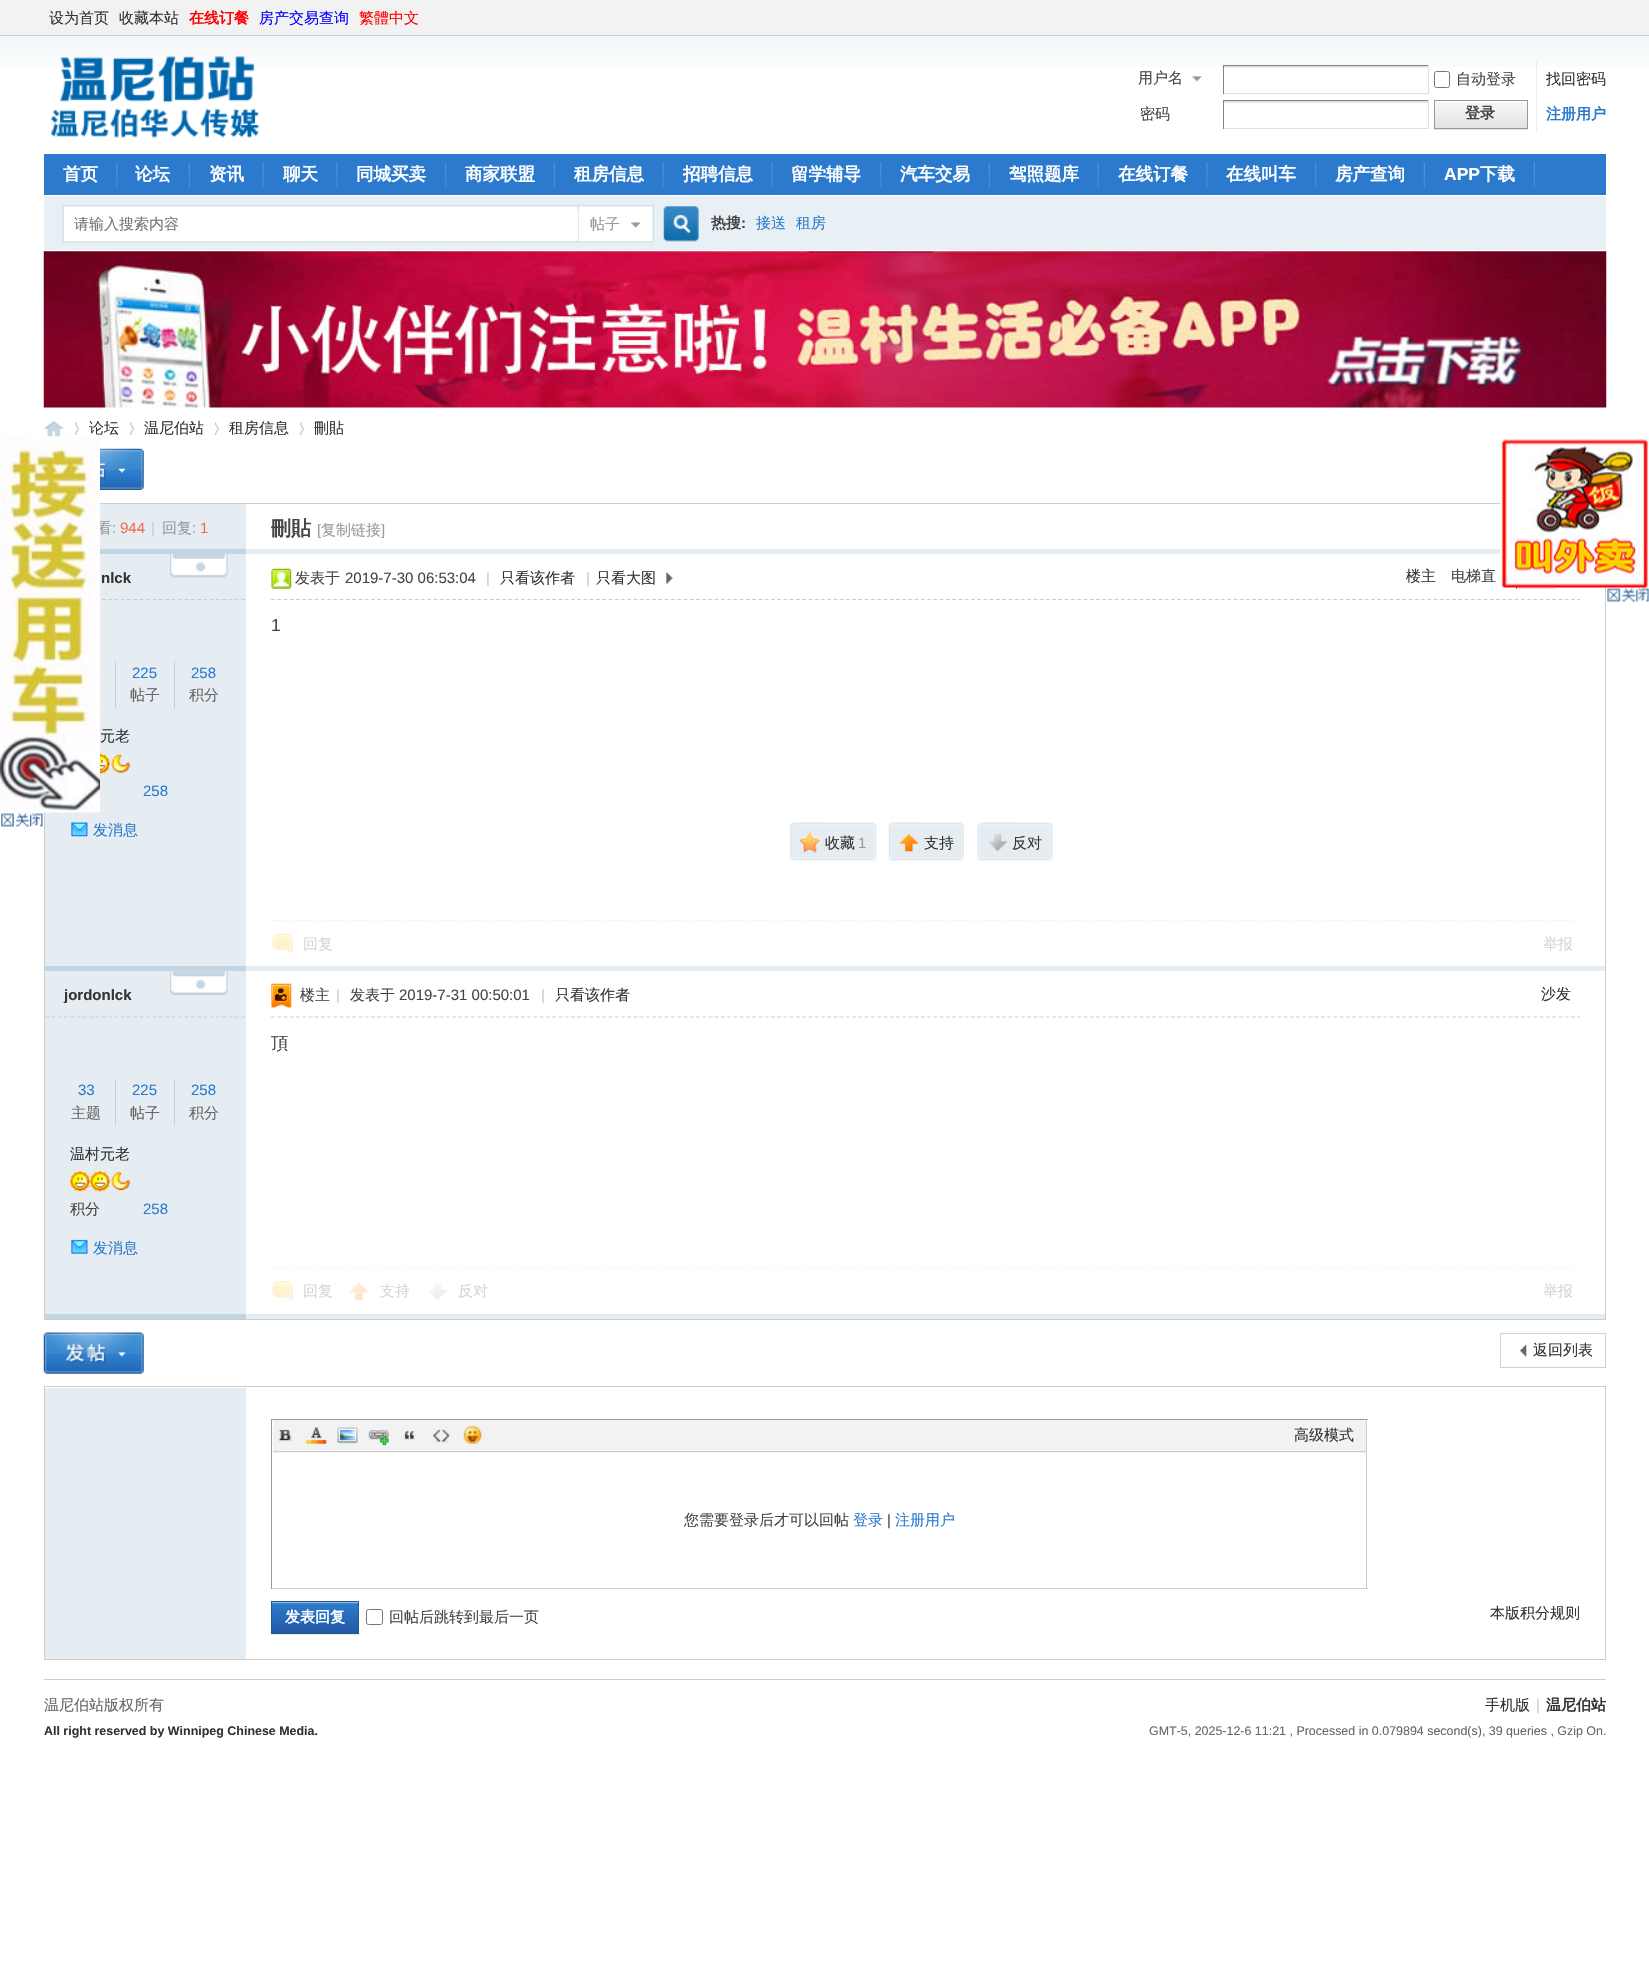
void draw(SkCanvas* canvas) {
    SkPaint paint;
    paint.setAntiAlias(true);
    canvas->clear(0xFFFFFFFF);
    canvas->drawImageRect(SkImages::DeferredFromEncodedData(SkData::MakeFromFileName("img1.png")), SkRect::MakeXYWH(0, 36, 1649, 31), SkSamplingOptions());
    paint.setColor(0xFFF2F2F2);
    canvas->drawRect(SkRect::MakeXYWH(0, 0, 1649, 35), paint);
    paint.setColor(0xFFCDCDCD);
    canvas->drawRect(SkRect::MakeXYWH(0, 35, 1649, 1), paint);
    SkFont font1(fontMgr->matchFamilyStyle("WenQuanYi Zen Hei", SkFontStyle(500, SkFontStyle::kNormal_Width, SkFontStyle::kUpright_Slant)), 15);
    font1.setSubpixel(true);
    paint.setColor(0xFF333333);
    canvas->drawString("设为首页", 49, 23, font1, paint);
    canvas->drawString("收藏本站", 119, 23, font1, paint);
    SkFont font2(fontMgr->matchFamilyStyle("WenQuanYi Zen Hei", SkFontStyle::Bold()), 15);
    font2.setSubpixel(true);
    paint.setColor(0xFFFF0000);
    canvas->drawString("在线订餐", 189, 23, font2, paint);
    paint.setColor(0xFF0000FF);
    canvas->drawString("房产交易查询", 259, 23, font1, paint);
    paint.setColor(0xFFFF0000);
    canvas->drawString("繁體中文", 359, 23, font1, paint);
    canvas->drawImageRect(SkImages::DeferredFromEncodedData(SkData::MakeFromFileName("img2.png")), SkRect::MakeXYWH(51, 56, 208, 82), SkSamplingOptions());
    canvas->drawImageRect(SkImages::DeferredFromEncodedData(SkData::MakeFromFileName("img3.png")), SkRect::MakeXYWH(1192, 76, 10, 6), SkSamplingOptions());
    paint.setColor(0xFF444444);
    canvas->drawString("用户名", 1138, 83, font1, paint);
    paint.setColor(0xFFFFFFFF);
    canvas->drawRect(SkRect::MakeXYWH(1224, 66, 204, 1), paint);
    canvas->drawImageRect(SkImages::DeferredFromEncodedData(SkData::MakeFromFileName("img4.png")), SkRect::MakeXYWH(1222, 66, 206, 2), SkSamplingOptions());
    paint.setColor(0xFF848484);
    canvas->drawRect(SkRect::MakeXYWH(1223, 65, 206, 1), paint);
    paint.setColor(0xFFE0E0E0);
    canvas->drawRect(SkRect::MakeXYWH(1428, 65, 1, 29), paint);
    canvas->drawRect(SkRect::MakeXYWH(1223, 93, 206, 1), paint);
    paint.setColor(0xFF848484);
    canvas->drawRect(SkRect::MakeXYWH(1223, 65, 1, 29), paint);
    paint.setStyle(SkPaint::kStroke_Style);
    paint.setStrokeWidth(1);
    paint.setColor(0xFF767676);
    canvas->drawRoundRect(SkRect::MakeXYWH(1434.5f, 71.5f, 15, 16), 2, 2, paint);
    paint.setStyle(SkPaint::kFill_Style);
    paint.setColor(0xFF444444);
    canvas->drawString("自动登录", 1456, 84, font1, paint);
    paint.setColor(0xFF333333);
    canvas->drawString("找回密码", 1546, 84, font1, paint);
    paint.setColor(0xFF444444);
    canvas->drawString("密码", 1140, 119, font1, paint);
    canvas->drawImageRect(SkImages::DeferredFromEncodedData(SkData::MakeFromFileName("img5.png")), SkRect::MakeXYWH(1222, 101, 206, 2), SkSamplingOptions());
    paint.setColor(0xFF848484);
    canvas->drawRect(SkRect::MakeXYWH(1223, 100, 206, 1), paint);
    paint.setColor(0xFFE0E0E0);
    canvas->drawRect(SkRect::MakeXYWH(1428, 100, 1, 29), paint);
    canvas->drawRect(SkRect::MakeXYWH(1223, 128, 206, 1), paint);
    paint.setColor(0xFF848484);
    canvas->drawRect(SkRect::MakeXYWH(1223, 100, 1, 29), paint);
    paint.setColor(0xFFE5EDF2);
    canvas->drawRect(SkRect::MakeXYWH(1536, 61, 1, 72), paint);
    paint.setColor(0xFFE5E5E5);
    canvas->drawPath(SkPathBuilder().moveTo(1434, 129).lineTo(1434, 130).lineTo(1528, 130).lineTo(1528, 101).lineTo(1528, 129).close().detach(), paint);
    canvas->drawImageRect(SkImages::DeferredFromEncodedData(SkData::MakeFromFileName("img6.png")), SkRect::MakeXYWH(1433, 101, 94, 28), SkSamplingOptions());
    paint.setStyle(SkPaint::kStroke_Style);
    paint.setColor(0xFF999999);
    canvas->drawRect(SkRect::MakeXYWH(1434.5f, 100.5f, 93, 28), paint);
    paint.setStyle(SkPaint::kFill_Style);
    paint.setColor(0xFF444444);
    canvas->drawString("登录", 1465, 118, font2, paint);
    paint.setColor(0xFF2B7ACD);
    canvas->drawString("注册用户", 1546, 119, font2, paint);
    canvas->drawRect(SkRect::MakeXYWH(44, 154, 1562, 41), paint);
    canvas->drawImageRect(SkImages::DeferredFromEncodedData(SkData::MakeFromFileName("img7.png")), SkRect::MakeXYWH(116, 162, 2, 26), SkSamplingOptions());
    SkFont font3(fontMgr->matchFamilyStyle("WenQuanYi Zen Hei", SkFontStyle::Bold()), 17.5f);
    font3.setSubpixel(true);
    paint.setColor(0xFFFFFFFF);
    canvas->drawString("首页", 63, 180, font3, paint);
    canvas->drawImageRect(SkImages::DeferredFromEncodedData(SkData::MakeFromFileName("img8.png")), SkRect::MakeXYWH(188, 162, 2, 26), SkSamplingOptions());
    canvas->drawString("论坛", 135, 180, font3, paint);
    canvas->drawImageRect(SkImages::DeferredFromEncodedData(SkData::MakeFromFileName("img9.png")), SkRect::MakeXYWH(262, 162, 2, 26), SkSamplingOptions());
    canvas->drawString("资讯", 209, 180, font3, paint);
    canvas->drawImageRect(SkImages::DeferredFromEncodedData(SkData::MakeFromFileName("img7.png")), SkRect::MakeXYWH(336, 162, 2, 26), SkSamplingOptions());
    canvas->drawString("聊天", 283, 180, font3, paint);
    canvas->drawImageRect(SkImages::DeferredFromEncodedData(SkData::MakeFromFileName("img10.png")), SkRect::MakeXYWH(445, 162, 2, 26), SkSamplingOptions());
    canvas->drawString("同城买卖", 356, 180, font3, paint);
    canvas->drawImageRect(SkImages::DeferredFromEncodedData(SkData::MakeFromFileName("img8.png")), SkRect::MakeXYWH(553, 162, 2, 26), SkSamplingOptions());
    canvas->drawString("商家联盟", 465, 180, font3, paint);
    canvas->drawImageRect(SkImages::DeferredFromEncodedData(SkData::MakeFromFileName("img11.png")), SkRect::MakeXYWH(662, 162, 2, 26), SkSamplingOptions());
    canvas->drawString("租房信息", 574, 180, font3, paint);
    canvas->drawImageRect(SkImages::DeferredFromEncodedData(SkData::MakeFromFileName("img7.png")), SkRect::MakeXYWH(771, 162, 2, 26), SkSamplingOptions());
    canvas->drawString("招聘信息", 683, 180, font3, paint);
    canvas->drawImageRect(SkImages::DeferredFromEncodedData(SkData::MakeFromFileName("img10.png")), SkRect::MakeXYWH(880, 162, 2, 26), SkSamplingOptions());
    canvas->drawString("留学辅导", 791, 180, font3, paint);
    canvas->drawImageRect(SkImages::DeferredFromEncodedData(SkData::MakeFromFileName("img8.png")), SkRect::MakeXYWH(988, 162, 2, 26), SkSamplingOptions());
    canvas->drawString("汽车交易", 900, 180, font3, paint);
    canvas->drawImageRect(SkImages::DeferredFromEncodedData(SkData::MakeFromFileName("img9.png")), SkRect::MakeXYWH(1097, 162, 2, 26), SkSamplingOptions());
    canvas->drawString("驾照题库", 1009, 180, font3, paint);
    canvas->drawImageRect(SkImages::DeferredFromEncodedData(SkData::MakeFromFileName("img7.png")), SkRect::MakeXYWH(1206, 162, 2, 26), SkSamplingOptions());
    canvas->drawString("在线订餐", 1118, 180, font3, paint);
    canvas->drawImageRect(SkImages::DeferredFromEncodedData(SkData::MakeFromFileName("img10.png")), SkRect::MakeXYWH(1315, 162, 2, 26), SkSamplingOptions());
    canvas->drawString("在线叫车", 1226, 180, font3, paint);
    canvas->drawImageRect(SkImages::DeferredFromEncodedData(SkData::MakeFromFileName("img8.png")), SkRect::MakeXYWH(1423, 162, 2, 26), SkSamplingOptions());
    canvas->drawString("房产查询", 1335, 180, font3, paint);
    canvas->drawImageRect(SkImages::DeferredFromEncodedData(SkData::MakeFromFileName("img8.png")), SkRect::MakeXYWH(1533, 162, 2, 26), SkSamplingOptions());
    SkFont font4(fontMgr->matchFamilyStyle("Liberation Sans", SkFontStyle::Bold()), 17.5f);
    font4.setSubpixel(true);
    canvas->drawString("APP", 1444, 180, font4, paint);
    canvas->drawString("下载", 1480, 180, font3, paint);
    paint.setColor(0xFFE8EFF5);
    canvas->drawRect(SkRect::MakeXYWH(44, 196, 1562, 54), paint);
    canvas->drawImageRect(SkImages::DeferredFromEncodedData(SkData::MakeFromFileName("img12.png")), SkRect::MakeXYWH(62, 205, 8, 38), SkSamplingOptions());
    canvas->drawImageRect(SkImages::DeferredFromEncodedData(SkData::MakeFromFileName("img13.png")), SkRect::MakeXYWH(70, 205, 508, 38), SkSamplingOptions());
    canvas->drawImageRect(SkImages::DeferredFromEncodedData(SkData::MakeFromFileName("img14.png")), SkRect::MakeXYWH(577, 205, 77, 38), SkSamplingOptions());
    paint.setColor(0xFFFFFFFF);
    canvas->drawRect(SkRect::MakeXYWH(577, 211, 1, 28), paint);
    paint.setColor(0xFF757575);
    canvas->drawString("请输入搜索内容", 74, 229, font1, paint);
    paint.setColor(0xFF999999);
    canvas->drawString("帖子", 590, 229, font1, paint);
    canvas->drawImageRect(SkImages::DeferredFromEncodedData(SkData::MakeFromFileName("img15.png")), SkRect::MakeXYWH(663, 206, 36, 36), SkSamplingOptions());
    paint.setColor(0xFF444444);
    canvas->drawString("热搜", 711, 228, font2, paint);
    SkFont font5(fontMgr->matchFamilyStyle("Liberation Sans", SkFontStyle::Bold()), 15);
    font5.setSubpixel(true);
    canvas->drawString(":", 741, 228, font5, paint);
    paint.setColor(0xFF2B7ACD);
    canvas->drawString("接送", 756, 228, font1, paint);
    canvas->drawString("租房", 796, 228, font1, paint);
    paint.setStyle(SkPaint::kStroke_Style);
    paint.setColor(0xFFCDCDCD);
    canvas->drawRect(SkRect::MakeXYWH(44.5f, 503.5f, 1561, 816), paint);
    paint.setStyle(SkPaint::kFill_Style);
    paint.setColor(0xFFE5EDF2);
    canvas->drawRect(SkRect::MakeXYWH(100, 504, 146, 45), paint);
    paint.setColor(0xFF999999);
    canvas->drawString("看", 97, 533, font1, paint);
    paint.setColor(0xFFE5EDF2);
    canvas->drawRect(SkRect::MakeXYWH(45, 554, 201, 412), paint);
    paint.setStyle(SkPaint::kStroke_Style);
    paint.setStrokeWidth(1.2f);
    paint.setColor(0xFFCDCDCD);
    paint.setPathEffect(SkDashPathEffect::Make({{3.75f, 2.58f}}, 0));
    canvas->drawPath(SkPathBuilder().moveTo(45, 599.5f).lineTo(245, 599.5f).detach(), paint);
    paint.setPathEffect(nullptr);
    canvas->drawImageRect(SkImages::DeferredFromEncodedData(SkData::MakeFromFileName("img16.png")), SkRect::MakeXYWH(0, 437, 100, 376), SkSamplingOptions());
    canvas->drawImageRect(SkImages::DeferredFromEncodedData(SkData::MakeFromFileName("img17.png")), SkRect::MakeXYWH(1, 813, 42, 14), SkSamplingOptions());
    canvas->drawImageRect(SkImages::DeferredFromEncodedData(SkData::MakeFromFileName("img18.png")), SkRect::MakeXYWH(43, 251, 1564, 157), SkSamplingOptions());
    canvas->drawImageRect(SkImages::DeferredFromEncodedData(SkData::MakeFromFileName("img19.png")), SkRect::MakeXYWH(43, 421, 21, 16), SkSamplingOptions());
    canvas->drawImageRect(SkImages::DeferredFromEncodedData(SkData::MakeFromFileName("img20.png")), SkRect::MakeXYWH(75, 422, 4, 13), SkSamplingOptions());
    paint.setStyle(SkPaint::kFill_Style);
    paint.setColor(0xFF333333);
    canvas->drawString("论坛", 89, 433, font1, paint);
    canvas->drawImageRect(SkImages::DeferredFromEncodedData(SkData::MakeFromFileName("img21.png")), SkRect::MakeXYWH(130, 422, 4, 13), SkSamplingOptions());
    canvas->drawString("温尼伯站", 144, 433, font1, paint);
    canvas->drawImageRect(SkImages::DeferredFromEncodedData(SkData::MakeFromFileName("img21.png")), SkRect::MakeXYWH(215, 422, 4, 13), SkSamplingOptions());
    canvas->drawString("租房信息", 229, 433, font1, paint);
    canvas->drawImageRect(SkImages::DeferredFromEncodedData(SkData::MakeFromFileName("img20.png")), SkRect::MakeXYWH(300, 422, 4, 13), SkSamplingOptions());
    canvas->drawString("刪貼", 314, 433, font1, paint);
    canvas->drawImageRect(SkImages::DeferredFromEncodedData(SkData::MakeFromFileName("img22.png")), SkRect::MakeXYWH(100, 448, 44, 42), SkSamplingOptions());
    SkFont font6(fontMgr->matchFamilyStyle("Liberation Sans", SkFontStyle::Normal()), 15);
    font6.setSubpixel(true);
    paint.setColor(0xFF999999);
    canvas->drawString(":", 112, 533, font6, paint);
    paint.setColor(0xFFF26C4F);
    canvas->drawString("944", 120, 533, font6, paint);
    paint.setColor(0xFFCCCCCC);
    canvas->drawString("|", 151, 533, font6, paint);
    paint.setColor(0xFF999999);
    canvas->drawString("回复", 162, 533, font1, paint);
    canvas->drawString(":", 192, 533, font6, paint);
    paint.setColor(0xFFF26C4F);
    canvas->drawString("1", 200, 533, font6, paint);
    SkFont font7(fontMgr->matchFamilyStyle("WenQuanYi Zen Hei", SkFontStyle::Bold()), 20);
    font7.setSubpixel(true);
    paint.setColor(0xFF444444);
    canvas->drawString("刪貼", 271, 535, font7, paint);
    paint.setColor(0xFF999999);
    canvas->drawString("[", 317, 535, font6, paint);
    canvas->drawString("复制链接", 321, 535, font1, paint);
    canvas->drawString("]", 381, 535, font6, paint);
    paint.setColor(0xFFC2D5E3);
    canvas->drawRect(SkRect::MakeXYWH(100, 549, 146, 5), paint);
    paint.setColor(0xFFE5EDF2);
    canvas->drawRect(SkRect::MakeXYWH(246, 549, 1254, 5), paint);
    paint.setColor(0xFF333333);
    canvas->drawString("nlck", 101, 583, font5, paint);
    canvas->drawImageRect(SkImages::DeferredFromEncodedData(SkData::MakeFromFileName("img23.png")), SkRect::MakeXYWH(170, 553, 58, 25), SkSamplingOptions());
    paint.setColor(0xFFCCCCCC);
    canvas->drawRect(SkRect::MakeXYWH(115, 661, 1, 47), paint);
    canvas->drawRect(SkRect::MakeXYWH(174, 661, 1, 47), paint);
    paint.setColor(0xFF2B7ACD);
    canvas->drawString("225", 132, 678, font6, paint);
    paint.setColor(0xFF666666);
    canvas->drawString("帖子", 130, 700, font1, paint);
    paint.setColor(0xFF2B7ACD);
    canvas->drawString("258", 191, 678, font6, paint);
    paint.setColor(0xFF666666);
    canvas->drawString("积分", 189, 700, font1, paint);
    paint.setColor(0xFF333333);
    canvas->drawString("元老", 100, 741, font1, paint);
    canvas->drawImageRect(SkImages::DeferredFromEncodedData(SkData::MakeFromFileName("img24.png")), SkRect::MakeXYWH(100, 753, 10, 21), SkSamplingOptions());
    canvas->drawImageRect(SkImages::DeferredFromEncodedData(SkData::MakeFromFileName("img25.png")), SkRect::MakeXYWH(111, 753, 19, 20), SkSamplingOptions());
    paint.setColor(0xFF2B7ACD);
    canvas->drawString("258", 143, 796, font6, paint);
    canvas->drawImageRect(SkImages::DeferredFromEncodedData(SkData::MakeFromFileName("img26.png")), SkRect::MakeXYWH(71, 822, 17, 15), SkSamplingOptions());
    canvas->drawString("发消息", 93, 835, font1, paint);
    paint.setStyle(SkPaint::kStroke_Style);
    paint.setColor(0xFFCDCDCD);
    paint.setPathEffect(SkDashPathEffect::Make({{3.75f, 2.5f}}, 0));
    canvas->drawPath(SkPathBuilder().moveTo(271, 599.5f).lineTo(1580, 599.5f).detach(), paint);
    paint.setPathEffect(nullptr);
    canvas->drawImageRect(SkImages::DeferredFromEncodedData(SkData::MakeFromFileName("img27.png")), SkRect::MakeXYWH(271, 568, 21, 21), SkSamplingOptions());
    paint.setStyle(SkPaint::kFill_Style);
    paint.setColor(0xFF444444);
    canvas->drawString("发表于", 295, 583, font1, paint);
    canvas->drawString("2019-7-30 06:53:04", 345, 583, font6, paint);
    paint.setColor(0xFFCCCCCC);
    canvas->drawString("|", 486, 583, font6, paint);
    paint.setColor(0xFF333333);
    canvas->drawString("只看该作者", 500, 583, font1, paint);
    paint.setColor(0xFFCCCCCC);
    canvas->drawString("|", 586, 583, font6, paint);
    paint.setColor(0xFF333333);
    canvas->drawString("只看大图", 596, 583, font1, paint);
    canvas->drawImageRect(SkImages::DeferredFromEncodedData(SkData::MakeFromFileName("img28.png")), SkRect::MakeXYWH(666, 572, 7, 12), SkSamplingOptions());
    canvas->drawString("楼主", 1406, 581, font1, paint);
    paint.setColor(0xFF444444);
    canvas->drawString("电梯直", 1451, 581, font1, paint);
    paint.setColor(0xFFE0E0E0);
    canvas->drawRect(SkRect::MakeXYWH(1554, 587, 1, 2), paint);
    canvas->drawRect(SkRect::MakeXYWH(1516, 588, 39, 1), paint);
    paint.setColor(0xFF848484);
    canvas->drawRect(SkRect::MakeXYWH(1516, 587, 1, 2), paint);
    SkFont font8(fontMgr->matchFamilyStyle("Liberation Sans", SkFontStyle::Normal()), 17.5f);
    font8.setSubpixel(true);
    paint.setColor(0xFF444444);
    canvas->drawString("1", 271, 631, font8, paint);
    canvas->drawImageRect(SkImages::DeferredFromEncodedData(SkData::MakeFromFileName("img29.png")), SkRect::MakeXYWH(790, 822, 33, 39), SkSamplingOptions());
    canvas->drawImageRect(SkImages::DeferredFromEncodedData(SkData::MakeFromFileName("img30.png")), SkRect::MakeXYWH(800, 822, 77, 39), SkSamplingOptions());
    canvas->drawImageRect(SkImages::DeferredFromEncodedData(SkData::MakeFromFileName("img31.png")), SkRect::MakeXYWH(800, 832, 20, 21), SkSamplingOptions());
    paint.setColor(0xFF333333);
    canvas->drawString("收藏", 825, 848, font1, paint);
    paint.setColor(0xFF999999);
    canvas->drawString("1", 858, 848, font6, paint);
    canvas->drawImageRect(SkImages::DeferredFromEncodedData(SkData::MakeFromFileName("img32.png")), SkRect::MakeXYWH(888, 822, 34, 39), SkSamplingOptions());
    canvas->drawImageRect(SkImages::DeferredFromEncodedData(SkData::MakeFromFileName("img33.png")), SkRect::MakeXYWH(899, 822, 65, 39), SkSamplingOptions());
    canvas->drawImageRect(SkImages::DeferredFromEncodedData(SkData::MakeFromFileName("img34.png")), SkRect::MakeXYWH(898, 833, 21, 19), SkSamplingOptions());
    paint.setColor(0xFF333333);
    canvas->drawString("支持", 924, 848, font1, paint);
    canvas->drawImageRect(SkImages::DeferredFromEncodedData(SkData::MakeFromFileName("img35.png")), SkRect::MakeXYWH(977, 822, 34, 39), SkSamplingOptions());
    canvas->drawImageRect(SkImages::DeferredFromEncodedData(SkData::MakeFromFileName("img36.png")), SkRect::MakeXYWH(987, 822, 66, 39), SkSamplingOptions());
    canvas->drawImageRect(SkImages::DeferredFromEncodedData(SkData::MakeFromFileName("img37.png")), SkRect::MakeXYWH(988, 833, 20, 19), SkSamplingOptions());
    canvas->drawString("反对", 1012, 848, font1, paint);
    paint.setStyle(SkPaint::kStroke_Style);
    paint.setColor(0xFFF5F5F5);
    paint.setPathEffect(SkDashPathEffect::Make({{3.75f, 2.5f}}, 0));
    canvas->drawPath(SkPathBuilder().moveTo(271, 920.5f).lineTo(1580, 920.5f).detach(), paint);
    paint.setPathEffect(nullptr);
    canvas->drawImageRect(SkImages::DeferredFromEncodedData(SkData::MakeFromFileName("img38.png")), SkRect::MakeXYWH(272, 933, 21, 20), SkSamplingOptions());
    paint.setStyle(SkPaint::kFill_Style);
    paint.setColor(0xFFD6D6D6);
    canvas->drawString("回复", 303, 949, font1, paint);
    canvas->drawString("举报", 1543, 949, font1, paint);
    paint.setColor(0xFFC2D5E3);
    canvas->drawRect(SkRect::MakeXYWH(45, 966, 201, 5), paint);
    paint.setColor(0xFFE5EDF2);
    canvas->drawRect(SkRect::MakeXYWH(246, 966, 1359, 5), paint);
    canvas->drawRect(SkRect::MakeXYWH(45, 971, 201, 343), paint);
    canvas->drawImageRect(SkImages::DeferredFromEncodedData(SkData::MakeFromFileName("img39.png")), SkRect::MakeXYWH(170, 971, 58, 24), SkSamplingOptions());
    paint.setStyle(SkPaint::kStroke_Style);
    paint.setColor(0xFFCDCDCD);
    paint.setPathEffect(SkDashPathEffect::Make({{3.75f, 2.58f}}, 0));
    canvas->drawPath(SkPathBuilder().moveTo(45, 1017).lineTo(245, 1017).detach(), paint);
    paint.setPathEffect(nullptr);
    paint.setStyle(SkPaint::kFill_Style);
    paint.setColor(0xFF333333);
    canvas->drawString("jordonlck", 64, 1000, font5, paint);
    paint.setColor(0xFFCCCCCC);
    canvas->drawRect(SkRect::MakeXYWH(115, 1079, 1, 46), paint);
    paint.setColor(0xFF2B7ACD);
    canvas->drawString("33", 78, 1095, font6, paint);
    paint.setColor(0xFF666666);
    canvas->drawString("主题", 71, 1118, font1, paint);
    paint.setColor(0xFFCCCCCC);
    canvas->drawRect(SkRect::MakeXYWH(174, 1079, 1, 46), paint);
    paint.setColor(0xFF2B7ACD);
    canvas->drawString("225", 132, 1095, font6, paint);
    paint.setColor(0xFF666666);
    canvas->drawString("帖子", 130, 1118, font1, paint);
    paint.setColor(0xFF2B7ACD);
    canvas->drawString("258", 191, 1095, font6, paint);
    paint.setColor(0xFF666666);
    canvas->drawString("积分", 189, 1118, font1, paint);
    paint.setColor(0xFF333333);
    canvas->drawString("温村元老", 70, 1159, font1, paint);
    canvas->drawImageRect(SkImages::DeferredFromEncodedData(SkData::MakeFromFileName("img40.png")), SkRect::MakeXYWH(70, 1171, 20, 21), SkSamplingOptions());
    canvas->drawImageRect(SkImages::DeferredFromEncodedData(SkData::MakeFromFileName("img40.png")), SkRect::MakeXYWH(90, 1171, 20, 21), SkSamplingOptions());
    canvas->drawImageRect(SkImages::DeferredFromEncodedData(SkData::MakeFromFileName("img41.png")), SkRect::MakeXYWH(111, 1171, 19, 20), SkSamplingOptions());
    paint.setColor(0xFF444444);
    canvas->drawString("积分", 70, 1214, font1, paint);
    paint.setColor(0xFF2B7ACD);
    canvas->drawString("258", 143, 1214, font6, paint);
    canvas->drawImageRect(SkImages::DeferredFromEncodedData(SkData::MakeFromFileName("img42.png")), SkRect::MakeXYWH(71, 1239, 17, 15), SkSamplingOptions());
    canvas->drawString("发消息", 93, 1253, font1, paint);
    paint.setStyle(SkPaint::kStroke_Style);
    paint.setColor(0xFFCDCDCD);
    paint.setPathEffect(SkDashPathEffect::Make({{3.75f, 2.5f}}, 0));
    canvas->drawPath(SkPathBuilder().moveTo(271, 1017).lineTo(1580, 1017).detach(), paint);
    paint.setPathEffect(nullptr);
    canvas->drawImageRect(SkImages::DeferredFromEncodedData(SkData::MakeFromFileName("img43.png")), SkRect::MakeXYWH(271, 983, 21, 25), SkSamplingOptions());
    paint.setStyle(SkPaint::kFill_Style);
    paint.setColor(0xFF444444);
    canvas->drawString("楼主", 300, 1000, font1, paint);
    paint.setColor(0xFFCCCCCC);
    canvas->drawString("|", 336, 1000, font6, paint);
    paint.setColor(0xFF444444);
    canvas->drawString("发表于", 350, 1000, font1, paint);
    canvas->drawString("2019-7-31 00:50:01", 399, 1000, font6, paint);
    paint.setColor(0xFFCCCCCC);
    canvas->drawString("|", 541, 1000, font6, paint);
    paint.setColor(0xFF333333);
    canvas->drawString("只看该作者", 555, 1000, font1, paint);
    canvas->drawString("沙发", 1541, 999, font1, paint);
    SkFont font9(fontMgr->matchFamilyStyle("WenQuanYi Zen Hei", SkFontStyle(500, SkFontStyle::kNormal_Width, SkFontStyle::kUpright_Slant)), 17.5f);
    font9.setSubpixel(true);
    paint.setColor(0xFF444444);
    canvas->drawString("頂", 271, 1049, font9, paint);
    paint.setStyle(SkPaint::kStroke_Style);
    paint.setColor(0xFFF5F5F5);
    paint.setPathEffect(SkDashPathEffect::Make({{3.75f, 2.5f}}, 0));
    canvas->drawPath(SkPathBuilder().moveTo(271, 1268).lineTo(1580, 1268).detach(), paint);
    paint.setPathEffect(nullptr);
    canvas->drawImageRect(SkImages::DeferredFromEncodedData(SkData::MakeFromFileName("img44.png")), SkRect::MakeXYWH(272, 1281, 21, 20), SkSamplingOptions());
    paint.setStyle(SkPaint::kFill_Style);
    paint.setColor(0xFFD6D6D6);
    canvas->drawString("回复", 303, 1296, font1, paint);
    canvas->drawImageRect(SkImages::DeferredFromEncodedData(SkData::MakeFromFileName("img45.png")), SkRect::MakeXYWH(349, 1282, 20, 19), SkSamplingOptions());
    canvas->drawString("支持", 380, 1296, font1, paint);
    canvas->drawImageRect(SkImages::DeferredFromEncodedData(SkData::MakeFromFileName("img46.png")), SkRect::MakeXYWH(428, 1282, 19, 18), SkSamplingOptions());
    canvas->drawString("反对", 458, 1296, font1, paint);
    canvas->drawString("举报", 1543, 1296, font1, paint);
    paint.setColor(0xFFC2D5E3);
    canvas->drawRect(SkRect::MakeXYWH(245, 1314, 1, 6), paint);
    canvas->drawRect(SkRect::MakeXYWH(45, 1314, 201, 5), paint);
    paint.setColor(0xFFE5EDF2);
    canvas->drawRect(SkRect::MakeXYWH(246, 1314, 1359, 5), paint);
    canvas->drawImageRect(SkImages::DeferredFromEncodedData(SkData::MakeFromFileName("img47.png")), SkRect::MakeXYWH(43, 1332, 101, 42), SkSamplingOptions());
    canvas->drawImageRect(SkImages::DeferredFromEncodedData(SkData::MakeFromFileName("img48.png")), SkRect::MakeXYWH(1519, 1344, 8, 13), SkSamplingOptions());
    paint.setStyle(SkPaint::kStroke_Style);
    paint.setStrokeWidth(1);
    paint.setColor(0xFFC2D5E3);
    canvas->drawRect(SkRect::MakeXYWH(1500.5f, 1333.5f, 105, 34), paint);
    paint.setStyle(SkPaint::kFill_Style);
    paint.setColor(0xFF333333);
    canvas->drawString("返回列表", 1533, 1355, font1, paint);
    paint.setStyle(SkPaint::kStroke_Style);
    paint.setColor(0xFFCDCDCD);
    canvas->drawRect(SkRect::MakeXYWH(44.5f, 1386.5f, 1561, 273), paint);
    paint.setStyle(SkPaint::kFill_Style);
    paint.setColor(0xFFC2D5E3);
    canvas->drawRect(SkRect::MakeXYWH(245, 1659, 1, 1), paint);
    paint.setColor(0xFFE5EDF2);
    canvas->drawRect(SkRect::MakeXYWH(45, 1388, 201, 271), paint);
    paint.setColor(0xFF999999);
    canvas->drawRect(SkRect::MakeXYWH(271, 1419, 1097, 1), paint);
    paint.setColor(0xFFCCCCCC);
    canvas->drawRect(SkRect::MakeXYWH(1366, 1419, 1, 170), paint);
    canvas->drawRect(SkRect::MakeXYWH(271, 1588, 1097, 1), paint);
    paint.setColor(0xFF999999);
    canvas->drawRect(SkRect::MakeXYWH(271, 1419, 1, 170), paint);
    paint.setColor(0xFFF2F2F2);
    canvas->drawRect(SkRect::MakeXYWH(273, 1420, 1093, 33), paint);
    paint.setColor(0xFFCDCDCD);
    canvas->drawRect(SkRect::MakeXYWH(273, 1451, 1093, 1), paint);
    canvas->drawImageRect(SkImages::DeferredFromEncodedData(SkData::MakeFromFileName("img49.png")), SkRect::MakeXYWH(278, 1429, 15, 13), SkSamplingOptions());
    canvas->drawImageRect(SkImages::DeferredFromEncodedData(SkData::MakeFromFileName("img50.png")), SkRect::MakeXYWH(306, 1427, 21, 17), SkSamplingOptions());
    canvas->drawImageRect(SkImages::DeferredFromEncodedData(SkData::MakeFromFileName("img51.png")), SkRect::MakeXYWH(337, 1427, 21, 17), SkSamplingOptions());
    canvas->drawImageRect(SkImages::DeferredFromEncodedData(SkData::MakeFromFileName("img52.png")), SkRect::MakeXYWH(368, 1430, 22, 16), SkSamplingOptions());
    canvas->drawImageRect(SkImages::DeferredFromEncodedData(SkData::MakeFromFileName("img53.png")), SkRect::MakeXYWH(403, 1431, 13, 9), SkSamplingOptions());
    canvas->drawImageRect(SkImages::DeferredFromEncodedData(SkData::MakeFromFileName("img54.png")), SkRect::MakeXYWH(432, 1429, 19, 14), SkSamplingOptions());
    canvas->drawImageRect(SkImages::DeferredFromEncodedData(SkData::MakeFromFileName("img55.png")), SkRect::MakeXYWH(463, 1426, 19, 18), SkSamplingOptions());
    paint.setColor(0xFF333333);
    canvas->drawString("高级模式", 1294, 1440, font1, paint);
    paint.setColor(0xFF444444);
    canvas->drawString("您需要登录后才可以回帖", 684, 1525, font1, paint);
    paint.setColor(0xFF2B7ACD);
    canvas->drawString("登录", 853, 1525, font1, paint);
    paint.setColor(0xFF444444);
    canvas->drawString("|", 887, 1525, font6, paint);
    paint.setColor(0xFF2B7ACD);
    canvas->drawString("注册用户", 895, 1525, font1, paint);
    paint.setColor(0xFFE5E5E5);
    canvas->drawPath(SkPathBuilder().moveTo(271, 1603).lineTo(271, 1635).lineTo(359, 1635).lineTo(359, 1603).lineTo(359, 1634).lineTo(271, 1634).close().detach(), paint);
    canvas->drawImageRect(SkImages::DeferredFromEncodedData(SkData::MakeFromFileName("img56.png")), SkRect::MakeXYWH(272, 1602, 86, 31), SkSamplingOptions());
    paint.setStyle(SkPaint::kStroke_Style);
    paint.setColor(0xFF235994);
    canvas->drawRect(SkRect::MakeXYWH(271.5f, 1601.5f, 87, 32), paint);
    paint.setStyle(SkPaint::kFill_Style);
    paint.setColor(0xFFFFFFFF);
    canvas->drawString("发表回复", 285, 1622, font2, paint);
    paint.setStyle(SkPaint::kStroke_Style);
    paint.setColor(0xFF767676);
    canvas->drawRoundRect(SkRect::MakeXYWH(366.5f, 1609.5f, 16, 15), 2, 2, paint);
    paint.setStyle(SkPaint::kFill_Style);
    paint.setColor(0xFF444444);
    canvas->drawString("回帖后跳转到最后一页", 389, 1622, font1, paint);
    paint.setColor(0xFF333333);
    canvas->drawString("本版积分规则", 1490, 1618, font1, paint);
    canvas->drawImageRect(SkImages::DeferredFromEncodedData(SkData::MakeFromFileName("img57.png")), SkRect::MakeXYWH(1500, 437, 149, 151), SkSamplingOptions());
    canvas->drawImageRect(SkImages::DeferredFromEncodedData(SkData::MakeFromFileName("img58.png")), SkRect::MakeXYWH(1607, 588, 42, 14), SkSamplingOptions());
    paint.setColor(0xFFCDCDCD);
    canvas->drawRect(SkRect::MakeXYWH(44, 1679, 1562, 1), paint);
    paint.setColor(0xFF666666);
    canvas->drawString("温尼伯站版权所有", 44, 1710, font1, paint);
    SkFont font10(fontMgr->matchFamilyStyle("Liberation Sans", SkFontStyle::Bold()), 12.45f);
    font10.setSubpixel(true);
    paint.setColor(0xFF333333);
    canvas->drawString("All right reserved by Winnipeg Chinese Media.", 44, 1735, font10, paint);
    canvas->drawString("手机版", 1485, 1710, font1, paint);
    paint.setColor(0xFFCCCCCC);
    canvas->drawString("|", 1536, 1710, font6, paint);
    paint.setColor(0xFF333333);
    canvas->drawString("温尼伯站", 1546, 1710, font2, paint);
    SkFont font11(fontMgr->matchFamilyStyle("Liberation Sans", SkFontStyle::Normal()), 12.45f);
    font11.setSubpixel(true);
    paint.setColor(0xFF666666);
    canvas->drawString("GMT-5, 2025-12-6 11:21 , Processed in 0.079894 second(s), 39 queries , Gzip On.", 1149, 1735, font11, paint);
}
